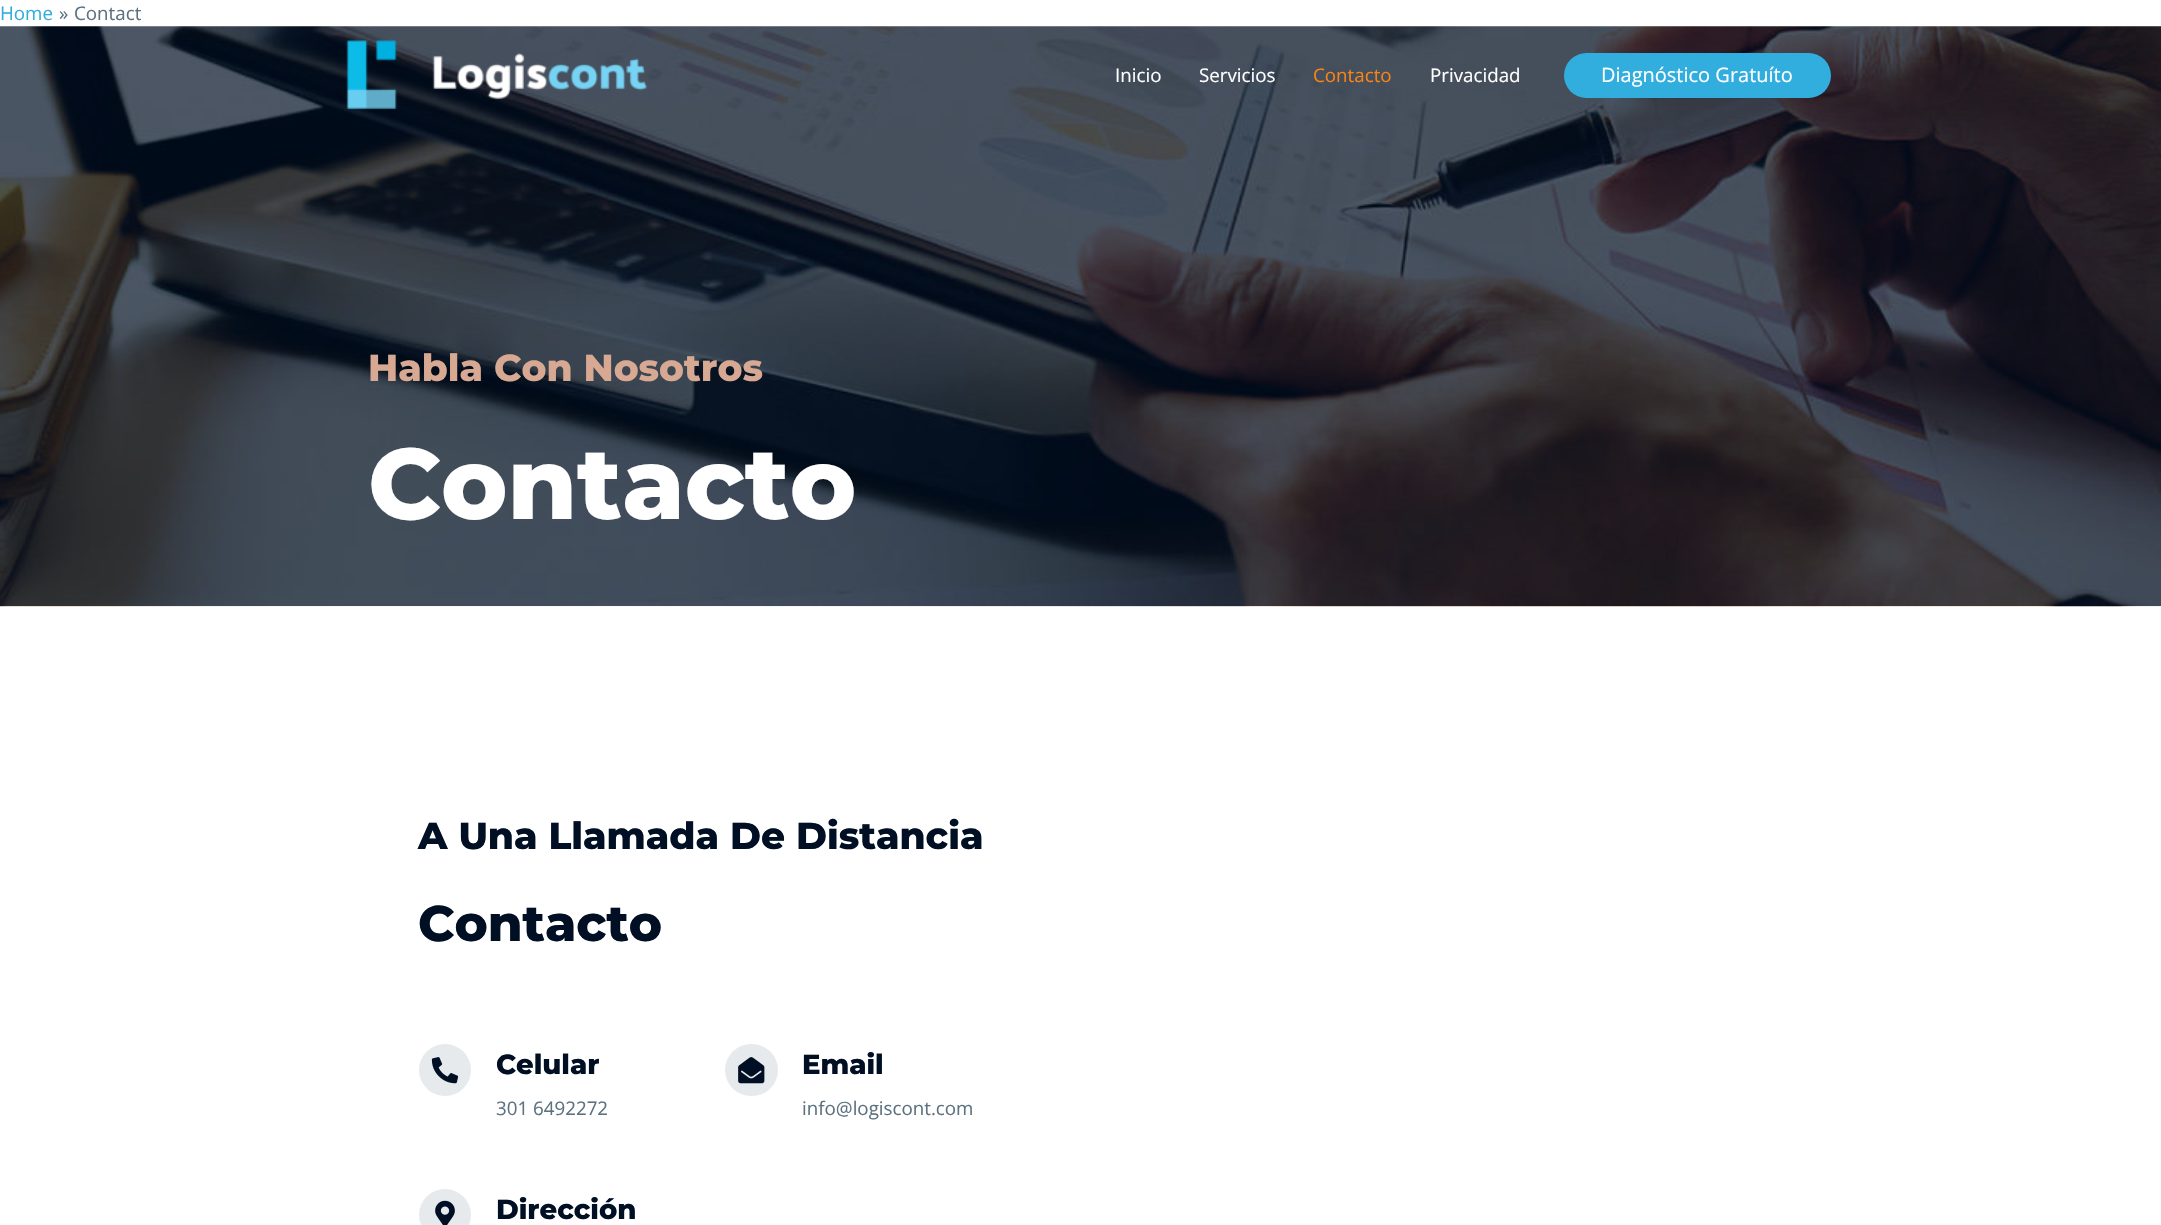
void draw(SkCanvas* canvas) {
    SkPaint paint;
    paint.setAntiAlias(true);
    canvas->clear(0xFFFFFFFF);
    SkFont font1(fontMgr->matchFamilyStyle("Open Sans", SkFontStyle::Normal()), 18.75f);
    font1.setSubpixel(true);
    paint.setColor(0xFF31AEDD);
    canvas->drawString("Home", 0, 20, font1, paint);
    paint.setColor(0xFF5D7280);
    canvas->drawString("»", 59, 20, font1, paint);
    canvas->drawString("Contact", 74, 20, font1, paint);
    canvas->drawImageRect(SkImages::DeferredFromEncodedData(SkData::MakeFromFileName("img1.png")), SkRect::MakeXYWH(0, 26, 2161, 581), SkSamplingOptions());
    SkFont font2(fontMgr->matchFamilyStyle("Montserrat", SkFontStyle(100, SkFontStyle::kNormal_Width, SkFontStyle::kUpright_Slant)), 37.5f);
    font2.setSubpixel(true);
    paint.setColor(0xFFD7A993);
    canvas->drawString("Habla Con Nosotros", 368, 381, font2, paint);
    SkFont font3(fontMgr->matchFamilyStyle("Montserrat", SkFontStyle(100, SkFontStyle::kNormal_Width, SkFontStyle::kUpright_Slant)), 100);
    font3.setSubpixel(true);
    paint.setColor(0xFFFFFFFF);
    canvas->drawString("Contacto", 368, 519, font3, paint);
    paint.setColor(0xFF000F23);
    canvas->drawString("A Una Llamada De Distancia", 418, 849, font2, paint);
    SkFont font4(fontMgr->matchFamilyStyle("Montserrat", SkFontStyle(100, SkFontStyle::kNormal_Width, SkFontStyle::kUpright_Slant)), 50);
    font4.setSubpixel(true);
    canvas->drawString("Contacto", 418, 941, font4, paint);
    paint.setColor(0xFFE7EAEC);
    canvas->drawCircle(445, 1070, 26, paint);
    canvas->drawImageRect(SkImages::DeferredFromEncodedData(SkData::MakeFromFileName("img2.png")), SkRect::MakeXYWH(431, 1057, 28, 27), SkSamplingOptions());
    SkFont font5(fontMgr->matchFamilyStyle("Montserrat", SkFontStyle(100, SkFontStyle::kNormal_Width, SkFontStyle::kUpright_Slant)), 27.5f);
    font5.setSubpixel(true);
    paint.setColor(0xFF000F23);
    canvas->drawString("Celular", 496, 1074, font5, paint);
    paint.setColor(0xFF5D7280);
    canvas->drawString("301 6492272", 496, 1115, font1, paint);
    paint.setColor(0xFFE7EAEC);
    canvas->drawRoundRect(SkRect::MakeXYWH(725, 1044, 53, 52), 26, 26, paint);
    canvas->drawImageRect(SkImages::DeferredFromEncodedData(SkData::MakeFromFileName("img3.png")), SkRect::MakeXYWH(738, 1057, 27, 27), SkSamplingOptions());
    paint.setColor(0xFF000F23);
    canvas->drawString("Email", 802, 1074, font5, paint);
    paint.setColor(0xFF5D7280);
    canvas->drawString("info@logiscont.com", 802, 1115, font1, paint);
    paint.setColor(0xFFE7EAEC);
    canvas->drawCircle(445, 1215, 26, paint);
    canvas->drawImageRect(SkImages::DeferredFromEncodedData(SkData::MakeFromFileName("img4.png")), SkRect::MakeXYWH(435, 1200, 20, 25), SkSamplingOptions());
    paint.setColor(0xFF000F23);
    canvas->drawString("Dirección", 496, 1219, font5, paint);
    canvas->drawImageRect(SkImages::DeferredFromEncodedData(SkData::MakeFromFileName("img5.png")), SkRect::MakeXYWH(346, 39, 302, 71), SkSamplingOptions());
    paint.setColor(0xFFFFFFFF);
    canvas->drawString("Inicio", 1115, 82, font1, paint);
    canvas->drawString("Servicios", 1199, 82, font1, paint);
    paint.setColor(0xFFF98416);
    canvas->drawString("Contacto", 1313, 82, font1, paint);
    paint.setColor(0xFFFFFFFF);
    canvas->drawString("Privacidad", 1430, 82, font1, paint);
    paint.setColor(0xFF31AEDD);
    canvas->drawRoundRect(SkRect::MakeXYWH(1564, 53, 267, 45), 22.5f, 22.5f, paint);
    SkFont font6(fontMgr->matchFamilyStyle("Open Sans", SkFontStyle::Normal()), 20);
    font6.setSubpixel(true);
    paint.setColor(0xFFFFFFFF);
    canvas->drawString("Diagnóstico Gratuíto", 1601, 82, font6, paint);
}
